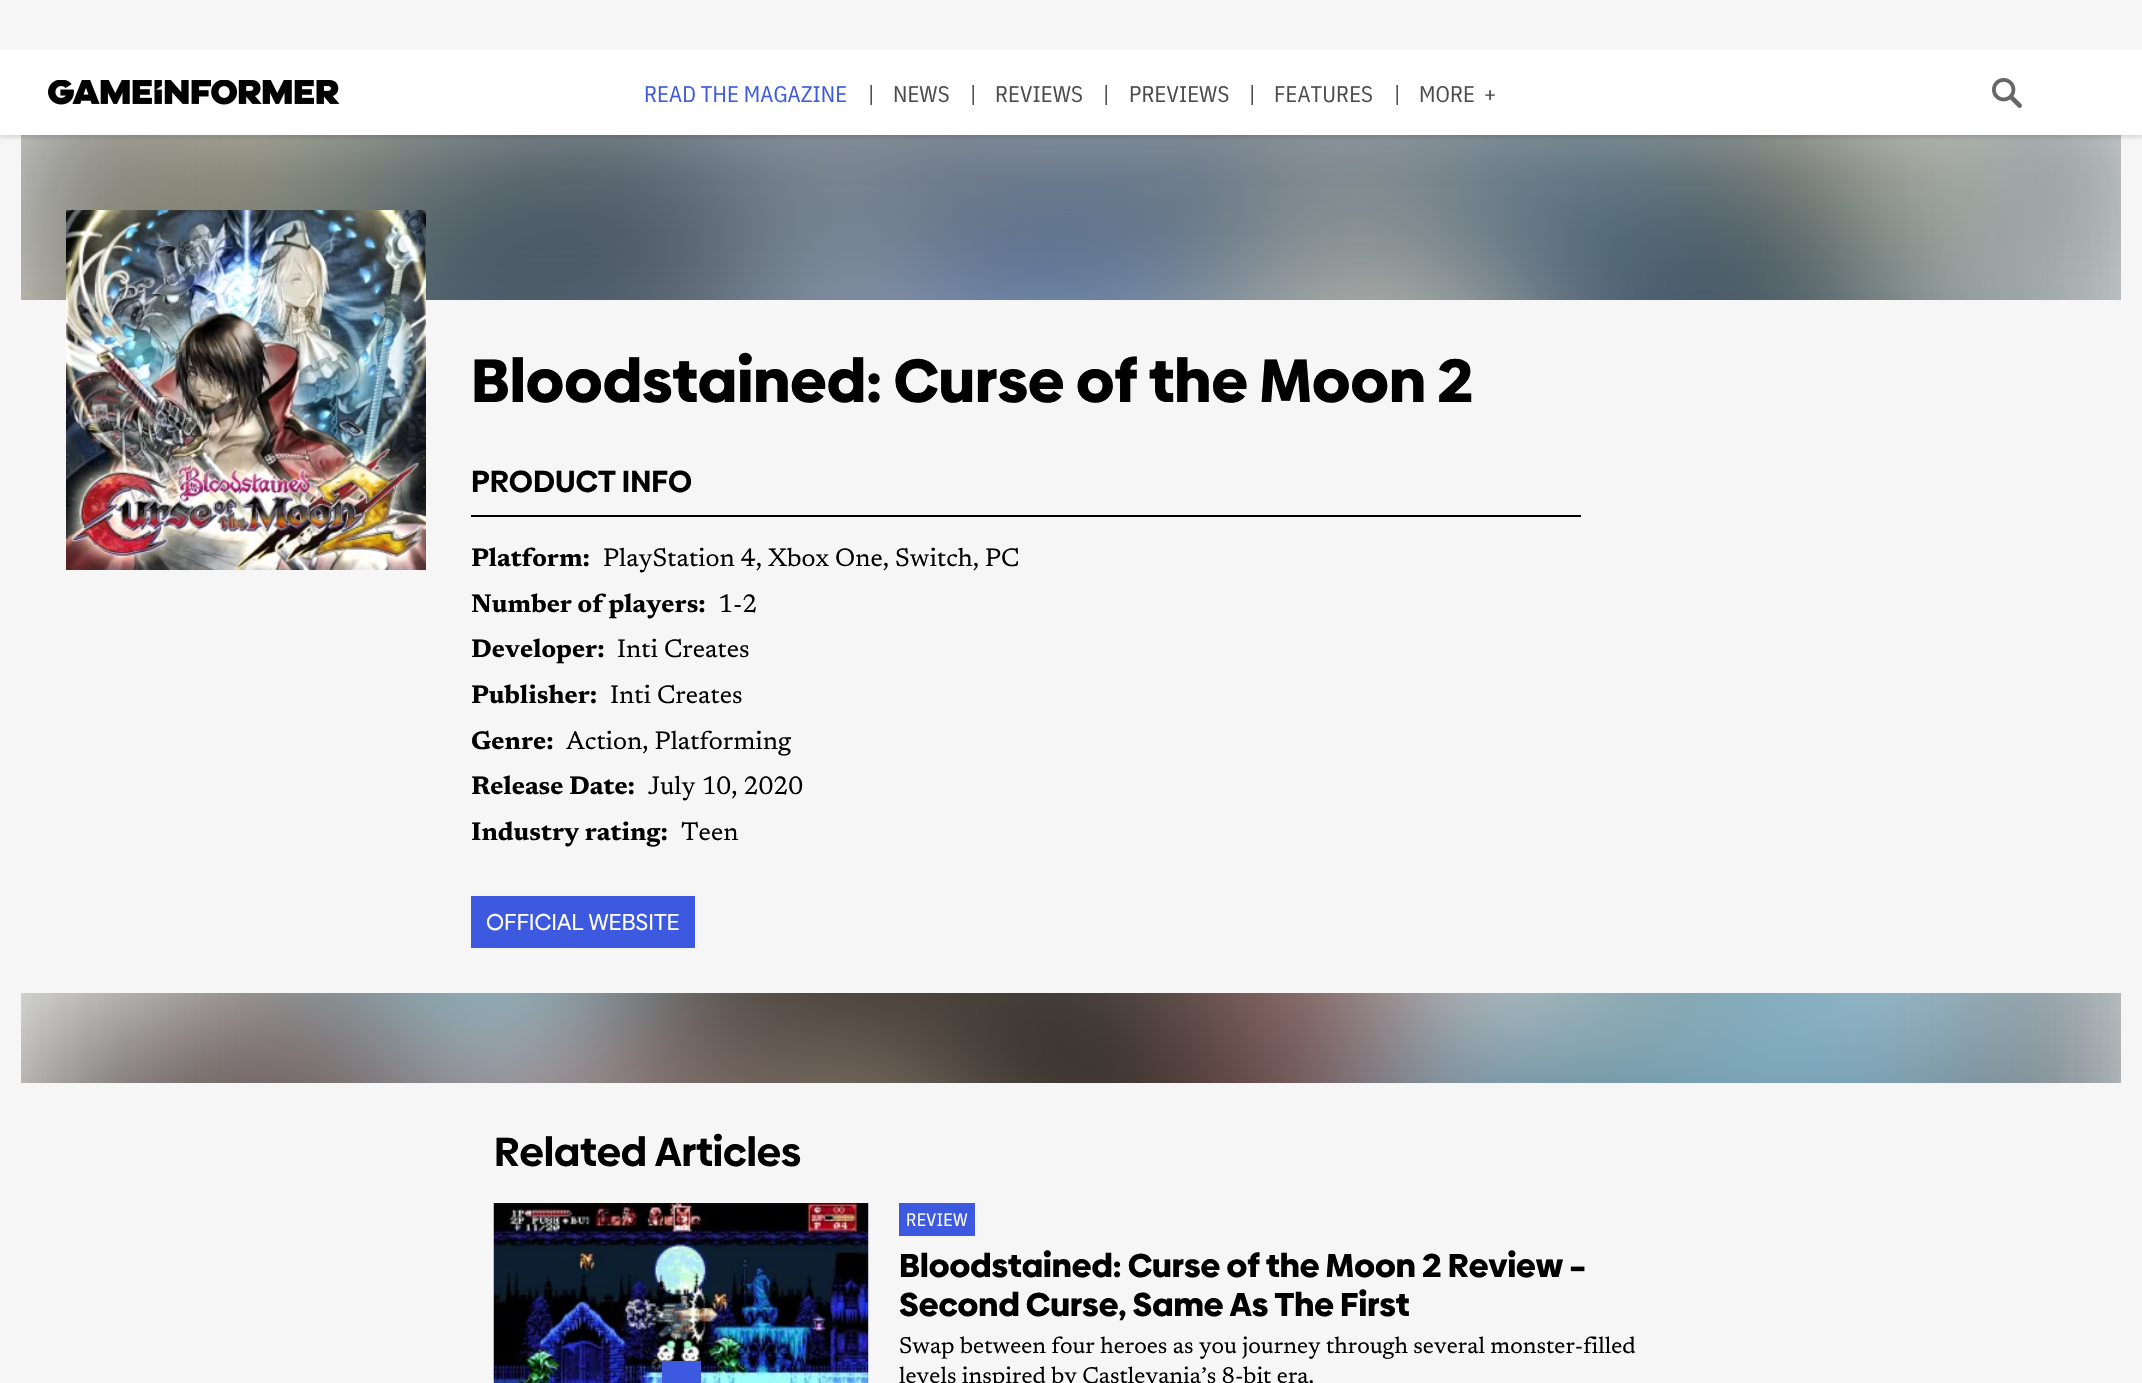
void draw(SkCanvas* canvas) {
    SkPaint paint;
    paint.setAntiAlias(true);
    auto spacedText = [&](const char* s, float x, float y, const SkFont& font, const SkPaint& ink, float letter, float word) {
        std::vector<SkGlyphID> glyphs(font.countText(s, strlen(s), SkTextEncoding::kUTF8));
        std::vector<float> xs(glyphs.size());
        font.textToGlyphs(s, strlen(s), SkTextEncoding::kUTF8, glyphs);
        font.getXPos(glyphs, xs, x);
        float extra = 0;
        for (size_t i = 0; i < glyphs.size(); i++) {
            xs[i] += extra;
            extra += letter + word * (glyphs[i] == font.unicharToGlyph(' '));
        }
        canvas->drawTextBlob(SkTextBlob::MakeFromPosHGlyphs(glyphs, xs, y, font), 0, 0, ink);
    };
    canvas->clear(0xFFF6F6F6);
    canvas->drawImageRect(SkImages::DeferredFromEncodedData(SkData::MakeFromFileName("img3.png")), SkRect::MakeXYWH(21, 135, 2100, 948), SkSamplingOptions());
    paint.setColor(0x1A000000);
    paint.setMaskFilter(SkMaskFilter::MakeBlur(kNormal_SkBlurStyle, 1.5f));
    canvas->drawRect(SkRect::MakeXYWH(0, 53, 2142, 85), paint);
    paint.setMaskFilter(nullptr);
    paint.setColor(0xFFFFFFFF);
    canvas->drawRect(SkRect::MakeXYWH(0, 50, 2142, 85), paint);
    canvas->drawImageRect(SkImages::DeferredFromEncodedData(SkData::MakeFromFileName("img1.png")), SkRect::MakeXYWH(48, 80, 292, 25), SkSamplingOptions());
    SkFont font1(fontMgr->matchFamilyStyle("IBM Plex Sans Condensed", SkFontStyle::Normal()), 22.5f);
    font1.setSubpixel(true);
    paint.setColor(0xFF3C59E0);
    spacedText("READ THE MAGAZINE", 644, 102, font1, paint, 0.1f, 0);
    paint.setColor(0xFF4B4B4B);
    spacedText("|", 868, 102, font1, paint, 0.1f, 0);
    spacedText("NEWS", 893, 102, font1, paint, 0.1f, 0);
    spacedText("|", 970, 102, font1, paint, 0.1f, 0);
    spacedText("REVIEWS", 995, 102, font1, paint, 0.1f, 0);
    spacedText("|", 1103, 102, font1, paint, 0.1f, 0);
    spacedText("PREVIEWS", 1129, 102, font1, paint, 0.1f, 0);
    spacedText("|", 1249, 102, font1, paint, 0.1f, 0);
    spacedText("FEATURES", 1274, 102, font1, paint, 0.1f, 0);
    spacedText("|", 1394, 102, font1, paint, 0.1f, 0);
    spacedText("MORE", 1419, 102, font1, paint, 0.1f, 0);
    spacedText("+", 1484, 102, font1, paint, 0.1f, 0);
    canvas->drawImageRect(SkImages::DeferredFromEncodedData(SkData::MakeFromFileName("img2.png")), SkRect::MakeXYWH(1992, 78, 30, 30), SkSamplingOptions());
    paint.setColor(0xFFF6F6F6);
    canvas->drawRect(SkRect::MakeXYWH(21, 300, 2100, 693), paint);
    canvas->drawImageRect(SkImages::DeferredFromEncodedData(SkData::MakeFromFileName("img4.png")), SkRect::MakeXYWH(66, 210, 360, 360), SkSamplingOptions());
    SkFont font2(fontMgr->matchFamilyStyle("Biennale", SkFontStyle(900, SkFontStyle::kNormal_Width, SkFontStyle::kUpright_Slant)), 61.25f);
    font2.setSubpixel(true);
    paint.setColor(0xFF000000);
    canvas->drawString("Bloodstained: Curse of the Moon 2", 471, 402, font2, paint);
    canvas->drawRect(SkRect::MakeXYWH(471, 515, 1110, 2), paint);
    SkFont font3(fontMgr->matchFamilyStyle("Biennale", SkFontStyle::Bold()), 30.5f);
    font3.setSubpixel(true);
    canvas->drawString("PRODUCT INFO", 471, 492, font3, paint);
    SkFont font4(fontMgr->matchFamilyStyle("Newsreader", SkFontStyle::Bold()), 25.5f);
    font4.setSubpixel(true);
    canvas->drawString("Platform:", 471, 566, font4, paint);
    SkFont font5(fontMgr->matchFamilyStyle("Newsreader", SkFontStyle::Normal()), 25.5f);
    font5.setSubpixel(true);
    canvas->drawString("PlayStation 4, Xbox One, Switch, PC", 603, 566, font5, paint);
    canvas->drawString("Number of players:", 471, 612, font4, paint);
    canvas->drawString("1-2", 718, 612, font5, paint);
    canvas->drawString("Developer:", 471, 657, font4, paint);
    canvas->drawString("Inti Creates", 617, 657, font5, paint);
    canvas->drawString("Publisher:", 471, 703, font4, paint);
    canvas->drawString("Inti Creates", 610, 703, font5, paint);
    canvas->drawString("Genre:", 471, 749, font4, paint);
    canvas->drawString("Action, Platforming", 566, 749, font5, paint);
    canvas->drawString("Release Date:", 471, 794, font4, paint);
    canvas->drawString("July 10, 2020", 648, 794, font5, paint);
    canvas->drawString("Industry rating:", 471, 840, font4, paint);
    canvas->drawString("Teen", 681, 840, font5, paint);
    paint.setColor(0xFF3C59E0);
    canvas->drawRect(SkRect::MakeXYWH(471, 896, 224, 52), paint);
    SkFont font6(fontMgr->matchFamilyStyle("Biennale", SkFontStyle::Normal()), 22.95f);
    font6.setSubpixel(true);
    paint.setColor(0xFFFFFFFF);
    canvas->drawString("OFFICIAL WEBSITE", 486, 930, font6, paint);
    SkFont font7(fontMgr->matchFamilyStyle("Biennale", SkFontStyle::Bold()), 40.75f);
    font7.setSubpixel(true);
    paint.setColor(0xFF000000);
    canvas->drawString("Related Articles", 494, 1166, font7, paint);
    paint.setColor(0xFFFFFFFF);
    canvas->drawRect(SkRect::MakeXYWH(868, 1203, 1, 180), paint);
    canvas->drawImageRect(SkImages::DeferredFromEncodedData(SkData::MakeFromFileName("img5.png")), SkRect::MakeXYWH(493, 1203, 376, 180), SkSamplingOptions());
    paint.setColor(0xFF3C59E0);
    canvas->drawRect(SkRect::MakeXYWH(662, 1361, 39, 22), paint);
    canvas->drawRect(SkRect::MakeXYWH(899, 1203, 76, 33), paint);
    SkFont font8(fontMgr->matchFamilyStyle("IBM Plex Sans Condensed", SkFontStyle::Normal()), 18);
    font8.setSubpixel(true);
    paint.setColor(0xFFFFFFFF);
    spacedText("REVIEW", 906, 1226, font8, paint, 0.25f, 0);
    SkFont font9(fontMgr->matchFamilyStyle("Biennale", SkFontStyle(900, SkFontStyle::kNormal_Width, SkFontStyle::kUpright_Slant)), 33.15f);
    font9.setSubpixel(true);
    paint.setColor(0xFF000000);
    canvas->drawString("Bloodstained: Curse of the Moon 2 Review –", 899, 1277, font9, paint);
    canvas->drawString("Second Curse, Same As The First", 899, 1316, font9, paint);
    SkFont font10(fontMgr->matchFamilyStyle("Newsreader", SkFontStyle::Normal()), 22.95f);
    font10.setSubpixel(true);
    canvas->drawString("Swap between four heroes as you journey through several monster-filled", 899, 1353, font10, paint);
    canvas->drawString("levels inspired by Castlevania’s 8-bit era.", 899, 1383, font10, paint);
}
